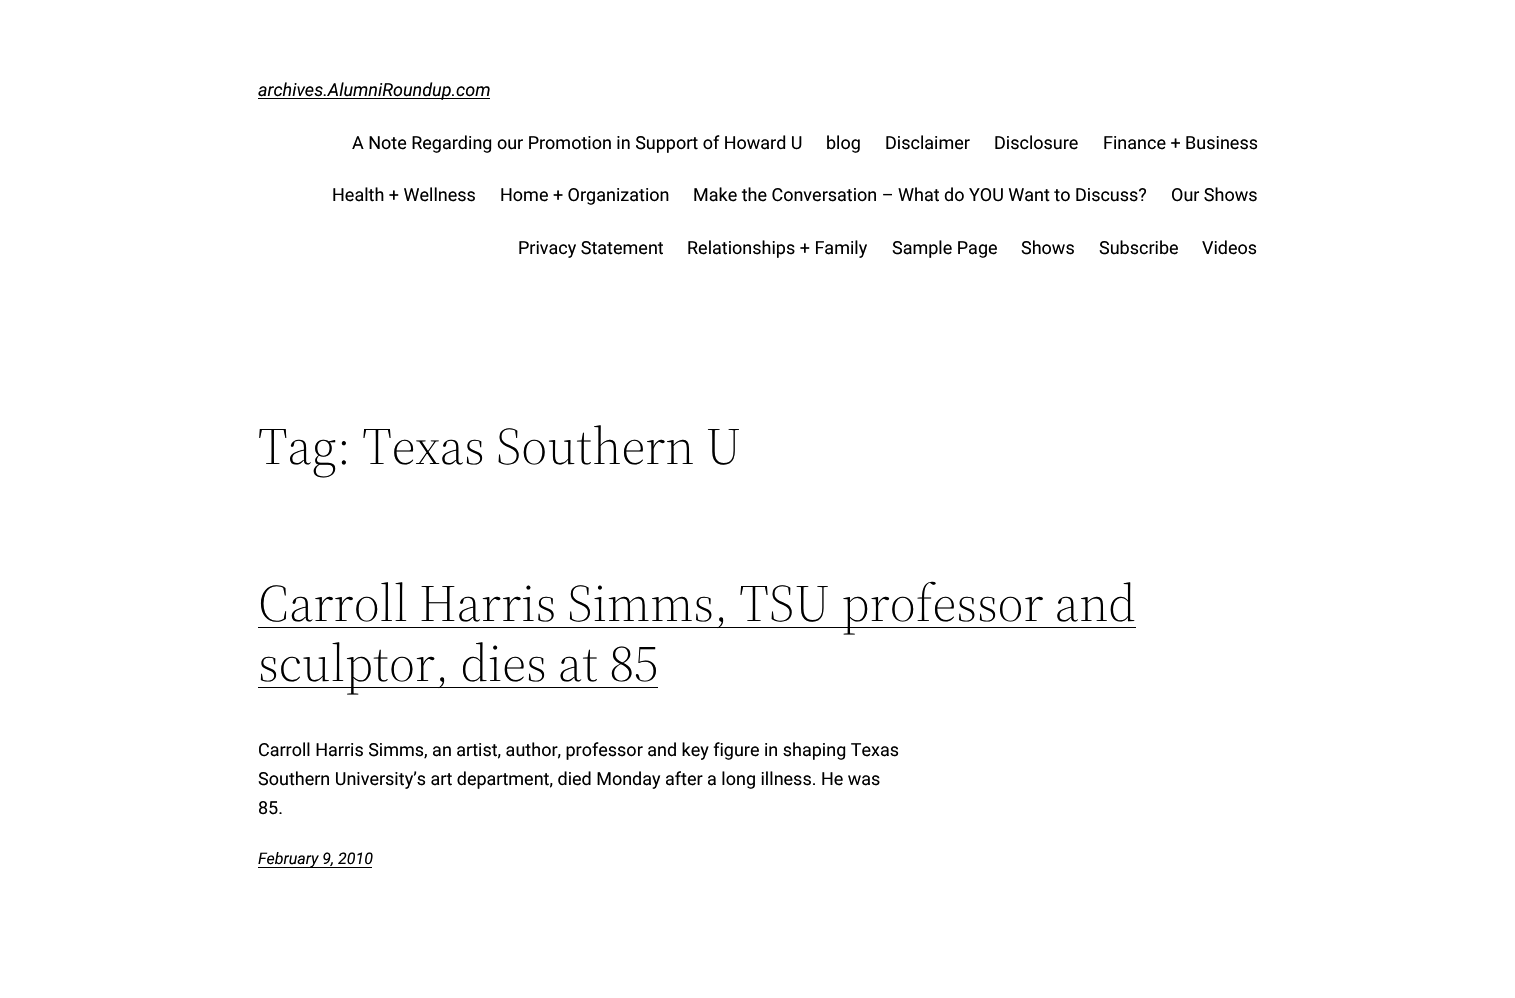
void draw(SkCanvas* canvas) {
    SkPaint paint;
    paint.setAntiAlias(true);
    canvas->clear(0xFFFFFFFF);
    paint.setColor(0xFF000000);
    canvas->drawRect(SkRect::MakeXYWH(258, 98, 232, 1), paint);
    SkFont font1(fontMgr->matchFamilyStyle("Roboto", SkFontStyle::Italic()), 18);
    font1.setSubpixel(true);
    canvas->drawString("archives.AlumniRoundup.com", 258, 96, font1, paint);
    SkFont font2(fontMgr->matchFamilyStyle("Roboto", SkFontStyle::Normal()), 18);
    font2.setSubpixel(true);
    canvas->drawString("A Note Regarding our Promotion in Support of Howard U", 352, 149, font2, paint);
    canvas->drawString("blog", 826, 149, font2, paint);
    canvas->drawString("Disclaimer", 885, 149, font2, paint);
    canvas->drawString("Disclosure", 994, 149, font2, paint);
    canvas->drawString("Finance + Business", 1103, 149, font2, paint);
    canvas->drawString("Health + Wellness", 332, 201, font2, paint);
    canvas->drawString("Home + Organization", 500, 201, font2, paint);
    canvas->drawString("Make the Conversation – What do YOU Want to Discuss?", 693, 201, font2, paint);
    canvas->drawString("Our Shows", 1171, 201, font2, paint);
    canvas->drawString("Privacy Statement", 518, 254, font2, paint);
    canvas->drawString("Relationships + Family", 687, 254, font2, paint);
    canvas->drawString("Sample Page", 892, 254, font2, paint);
    canvas->drawString("Shows", 1021, 254, font2, paint);
    canvas->drawString("Subscribe", 1099, 254, font2, paint);
    canvas->drawString("Videos", 1202, 254, font2, paint);
    SkFont font3(fontMgr->matchFamilyStyle("Source Serif 4", SkFontStyle(300, SkFontStyle::kNormal_Width, SkFontStyle::kUpright_Slant)), 52);
    font3.setSubpixel(true);
    canvas->drawString("Tag: Texas Southern U", 258, 464, font3, paint);
    canvas->drawRect(SkRect::MakeXYWH(258, 627, 878, 1), paint);
    canvas->drawString("Carroll Harris Simms, TSU professor and", 258, 621, font3, paint);
    canvas->drawRect(SkRect::MakeXYWH(258, 687, 400, 1), paint);
    canvas->drawString("sculptor, dies at 85", 258, 681, font3, paint);
    canvas->drawString("Carroll Harris Simms, an artist, author, professor and key figure in shaping Texas", 258, 756, font2, paint);
    canvas->drawString("Southern University’s art department, died Monday after a long illness. He was", 258, 785, font2, paint);
    canvas->drawString("85.", 258, 814, font2, paint);
    canvas->drawRect(SkRect::MakeXYWH(258, 867, 114, 1), paint);
    SkFont font4(fontMgr->matchFamilyStyle("Roboto", SkFontStyle::Italic()), 16);
    font4.setSubpixel(true);
    canvas->drawString("February 9, 2010", 258, 864, font4, paint);
}
